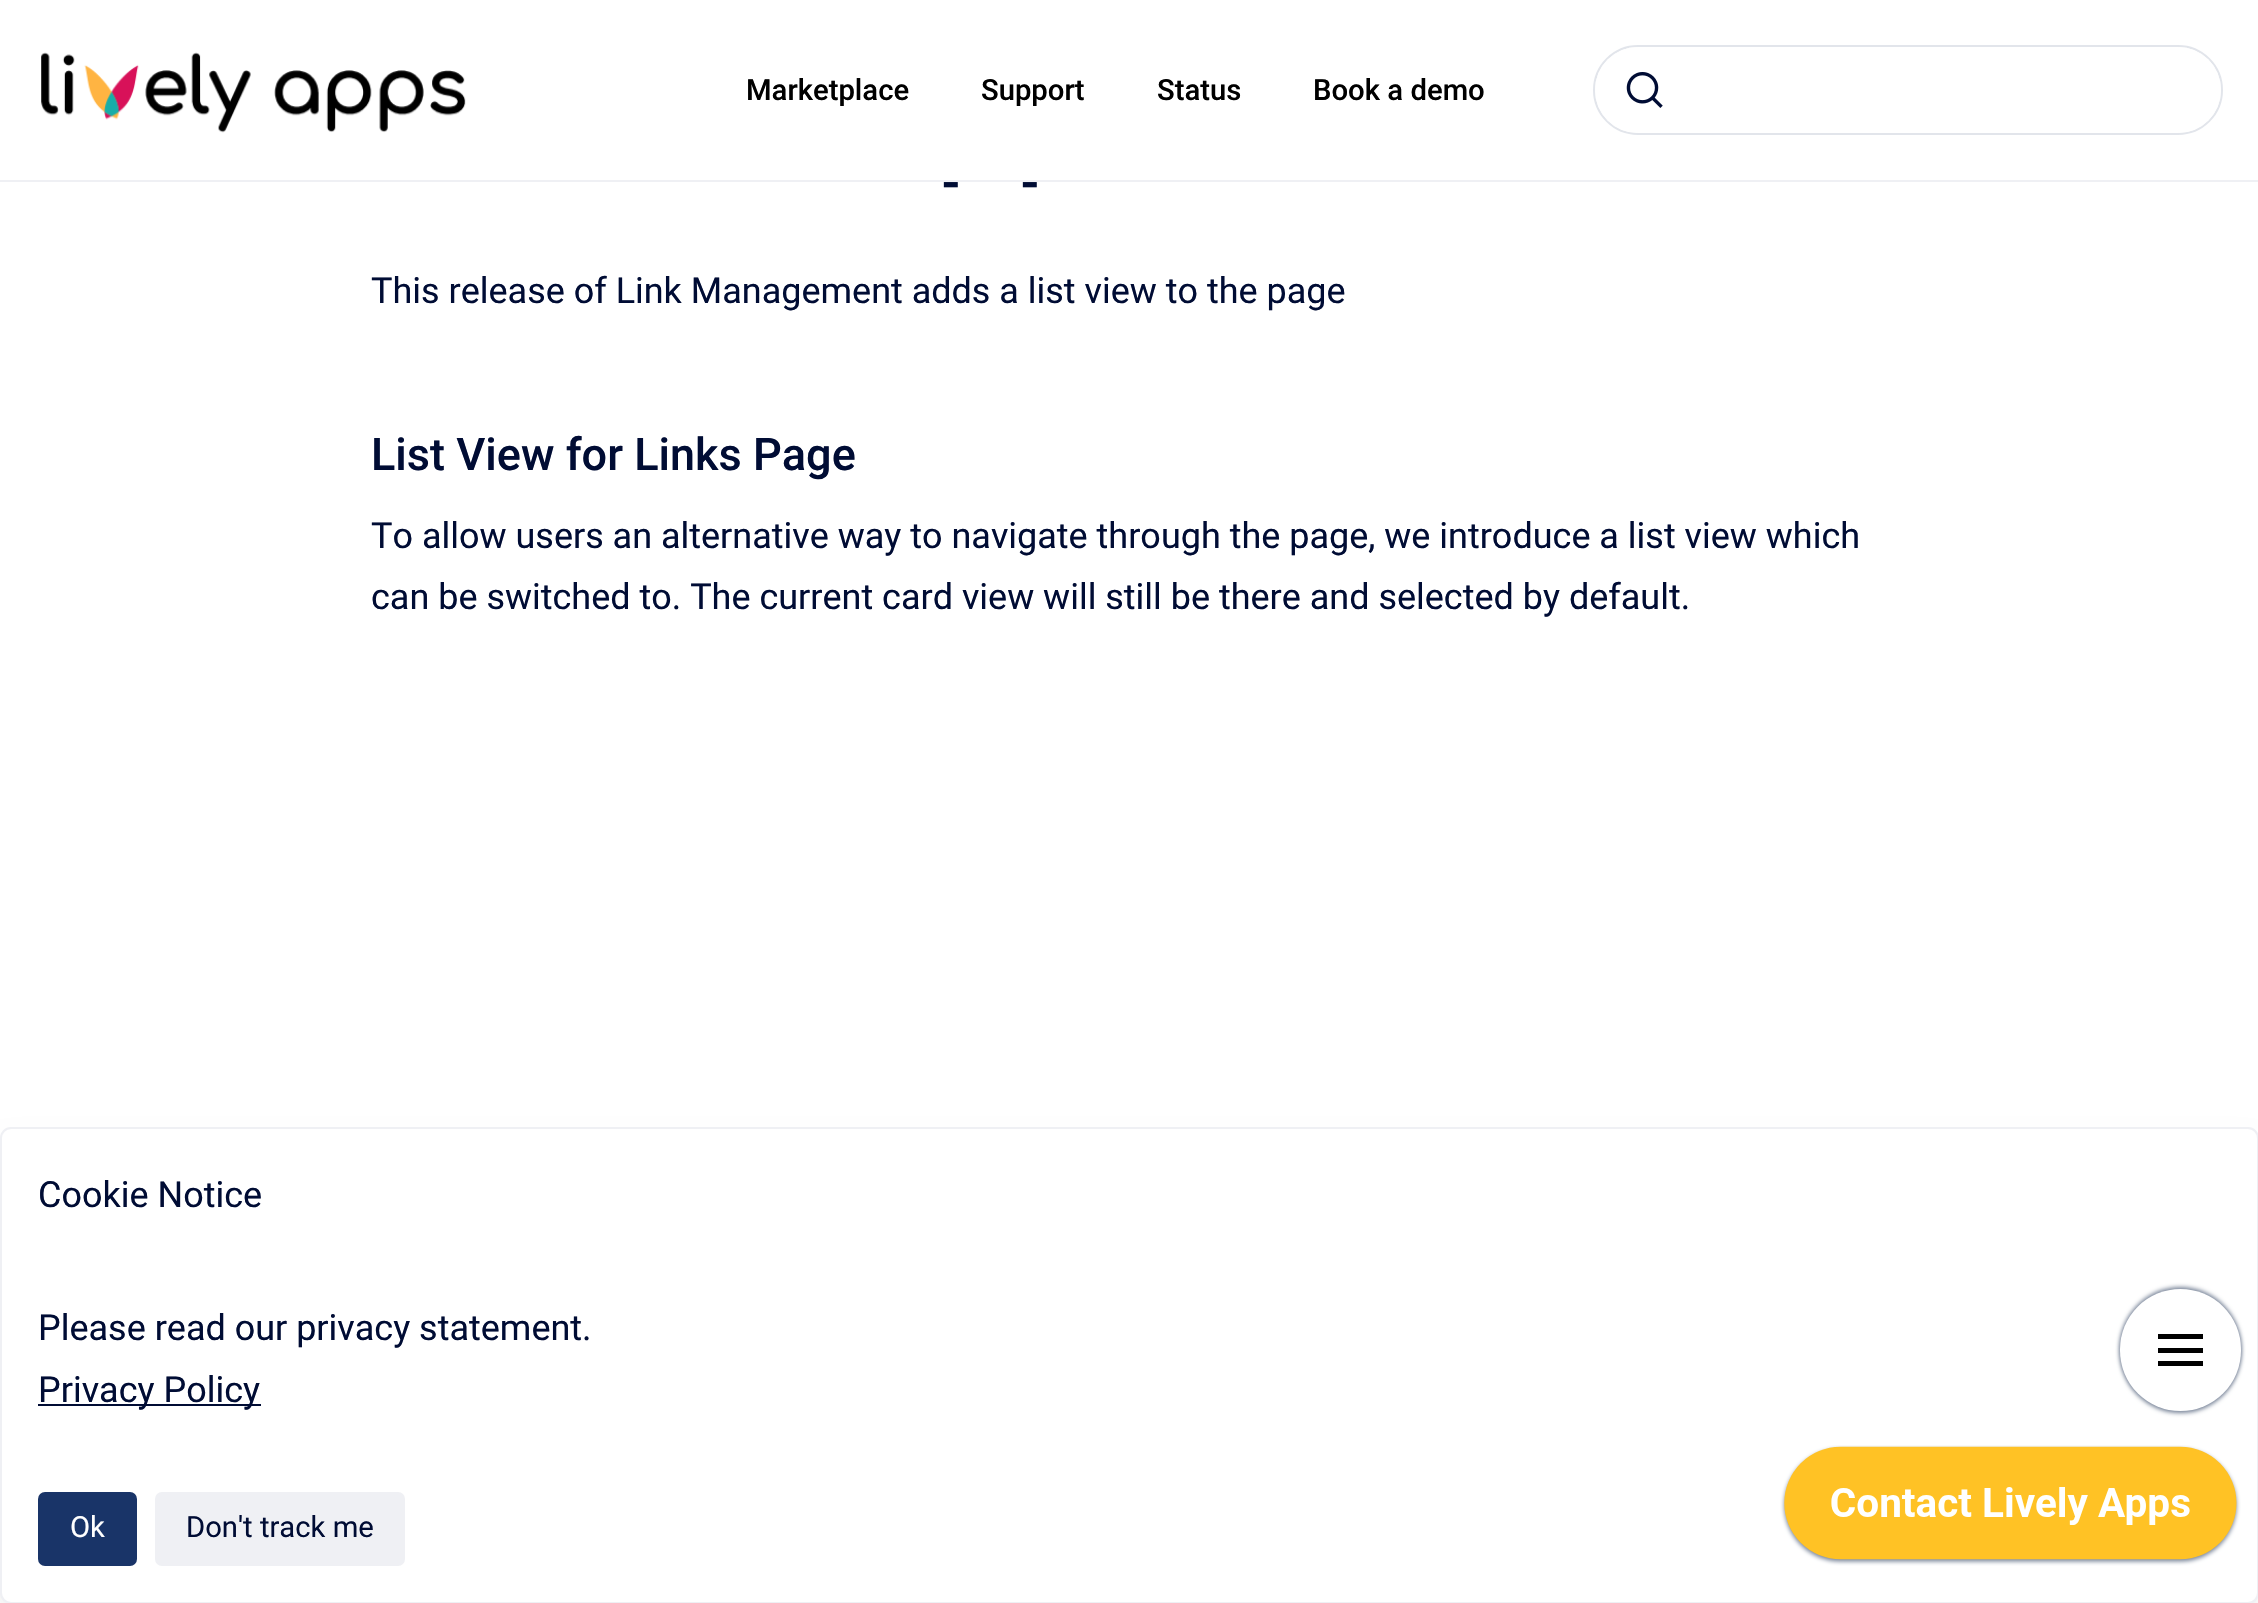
void draw(SkCanvas* canvas) {
    SkPaint paint;
    paint.setAntiAlias(true);
    canvas->clear(0xFFFFFFFF);
    paint.setColor(0xFFEFF0F4);
    canvas->drawRect(SkRect::MakeXYWH(0, 180, 2258, 2), paint);
    canvas->drawImageRect(SkImages::DeferredFromEncodedData(SkData::MakeFromFileName("img1.png")), SkRect::MakeXYWH(41, 52, 425, 81), SkSamplingOptions());
    SkFont font1(fontMgr->matchFamilyStyle("Roboto", SkFontStyle(500, SkFontStyle::kNormal_Width, SkFontStyle::kUpright_Slant)), 29.25f);
    font1.setSubpixel(true);
    paint.setColor(0xFF000000);
    canvas->drawString("Marketplace", 746, 100, font1, paint);
    canvas->drawString("Support", 981, 100, font1, paint);
    canvas->drawString("Status", 1157, 100, font1, paint);
    canvas->drawString("Book a demo", 1313, 100, font1, paint);
    paint.setStyle(SkPaint::kStroke_Style);
    paint.setStrokeWidth(2);
    paint.setColor(0xFFE2E5EB);
    canvas->drawRoundRect(SkRect::MakeXYWH(1594, 46, 628, 88), 44, 44, paint);
    paint.setStyle(SkPaint::kFill_Style);
    paint.setColor(0xFFFFFFFF);
    canvas->drawRoundRect(SkRect::MakeXYWH(1595, 47, 626, 86), 43, 43, paint);
    canvas->drawImageRect(SkImages::DeferredFromEncodedData(SkData::MakeFromFileName("img2.png")), SkRect::MakeXYWH(1626, 72, 37, 36), SkSamplingOptions());
    SkFont font2(fontMgr->matchFamilyStyle("Roboto", SkFontStyle(500, SkFontStyle::kNormal_Width, SkFontStyle::kUpright_Slant)), 54);
    font2.setSubpixel(true);
    paint.setColor(0xFF000C34);
    canvas->drawString("-", 942, 201, font2, paint);
    canvas->drawString("-", 1021, 201, font2, paint);
    SkFont font3(fontMgr->matchFamilyStyle("Roboto", SkFontStyle::Normal()), 36);
    font3.setSubpixel(true);
    canvas->drawString("This release of Link Management adds a list view to the page", 371, 303, font3, paint);
    SkFont font4(fontMgr->matchFamilyStyle("Roboto", SkFontStyle(500, SkFontStyle::kNormal_Width, SkFontStyle::kUpright_Slant)), 45);
    font4.setSubpixel(true);
    canvas->drawString("List View for Links Page", 371, 470, font4, paint);
    canvas->drawString("To allow users an alternative way to navigate through the page, we introduce a list view which", 371, 548, font3, paint);
    canvas->drawString("can be switched to. The current card view will still be there and selected by default.", 371, 609, font3, paint);
    paint.setColor(0x1A000000);
    paint.setMaskFilter(SkMaskFilter::MakeBlur(kNormal_SkBlurStyle, 17));
    canvas->drawRoundRect(SkRect::MakeXYWH(7, 1157, 2245, 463), 5, 5, paint);
    paint.setMaskFilter(nullptr);
    paint.setColor(0xFFFFFFFF);
    canvas->drawRoundRect(SkRect::MakeXYWH(1, 1128, 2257, 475), 10, 10, paint);
    paint.setStyle(SkPaint::kStroke_Style);
    paint.setColor(0xFFEFF0F4);
    canvas->drawRoundRect(SkRect::MakeXYWH(1, 1128, 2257, 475), 10, 10, paint);
    paint.setStyle(SkPaint::kFill_Style);
    paint.setColor(0xFF000C34);
    canvas->drawString("Cookie Notice", 38, 1207, font3, paint);
    canvas->drawString("Please read our privacy statement.", 38, 1340, font3, paint);
    canvas->drawRect(SkRect::MakeXYWH(38, 1404, 223, 2), paint);
    canvas->drawString("Privacy Policy", 38, 1402, font3, paint);
    paint.setColor(0xFF193468);
    canvas->drawRoundRect(SkRect::MakeXYWH(38, 1492, 99, 74), 7, 7, paint);
    SkFont font5(fontMgr->matchFamilyStyle("Roboto", SkFontStyle::Normal()), 29.25f);
    font5.setSubpixel(true);
    paint.setColor(0xFFFFFFFF);
    canvas->drawString("Ok", 70, 1537, font5, paint);
    paint.setColor(0xFFEFF0F4);
    canvas->drawRoundRect(SkRect::MakeXYWH(155, 1492, 250, 74), 7, 7, paint);
    paint.setColor(0xFF000C34);
    canvas->drawString("Don't track me", 186, 1537, font5, paint);
    paint.setColor(0xFF7A869A);
    paint.setMaskFilter(SkMaskFilter::MakeBlur(kNormal_SkBlurStyle, 2));
    canvas->drawRoundRect(SkRect::MakeXYWH(2120, 1287, 121, 122), 60.5f, 60.5f, paint);
    paint.setMaskFilter(nullptr);
    paint.setMaskFilter(SkMaskFilter::MakeBlur(kNormal_SkBlurStyle, 2));
    canvas->drawRoundRect(SkRect::MakeXYWH(2120, 1292, 121, 121), 60.5f, 60.5f, paint);
    paint.setMaskFilter(nullptr);
    paint.setColor(0xFFFFFFFF);
    canvas->drawRoundRect(SkRect::MakeXYWH(2120, 1289, 121, 122), 60.5f, 60.5f, paint);
    paint.setColor(0xFF000000);
    canvas->drawRect(SkRect::MakeXYWH(2158, 1334, 45, 5), paint);
    canvas->drawRect(SkRect::MakeXYWH(2158, 1348, 45, 5), paint);
    canvas->drawRect(SkRect::MakeXYWH(2158, 1361, 45, 5), paint);
    canvas->drawImageRect(SkImages::DeferredFromEncodedData(SkData::MakeFromFileName("img3.png")), SkRect::MakeXYWH(1780, 1445, 461, 121), SkSamplingOptions());
}
